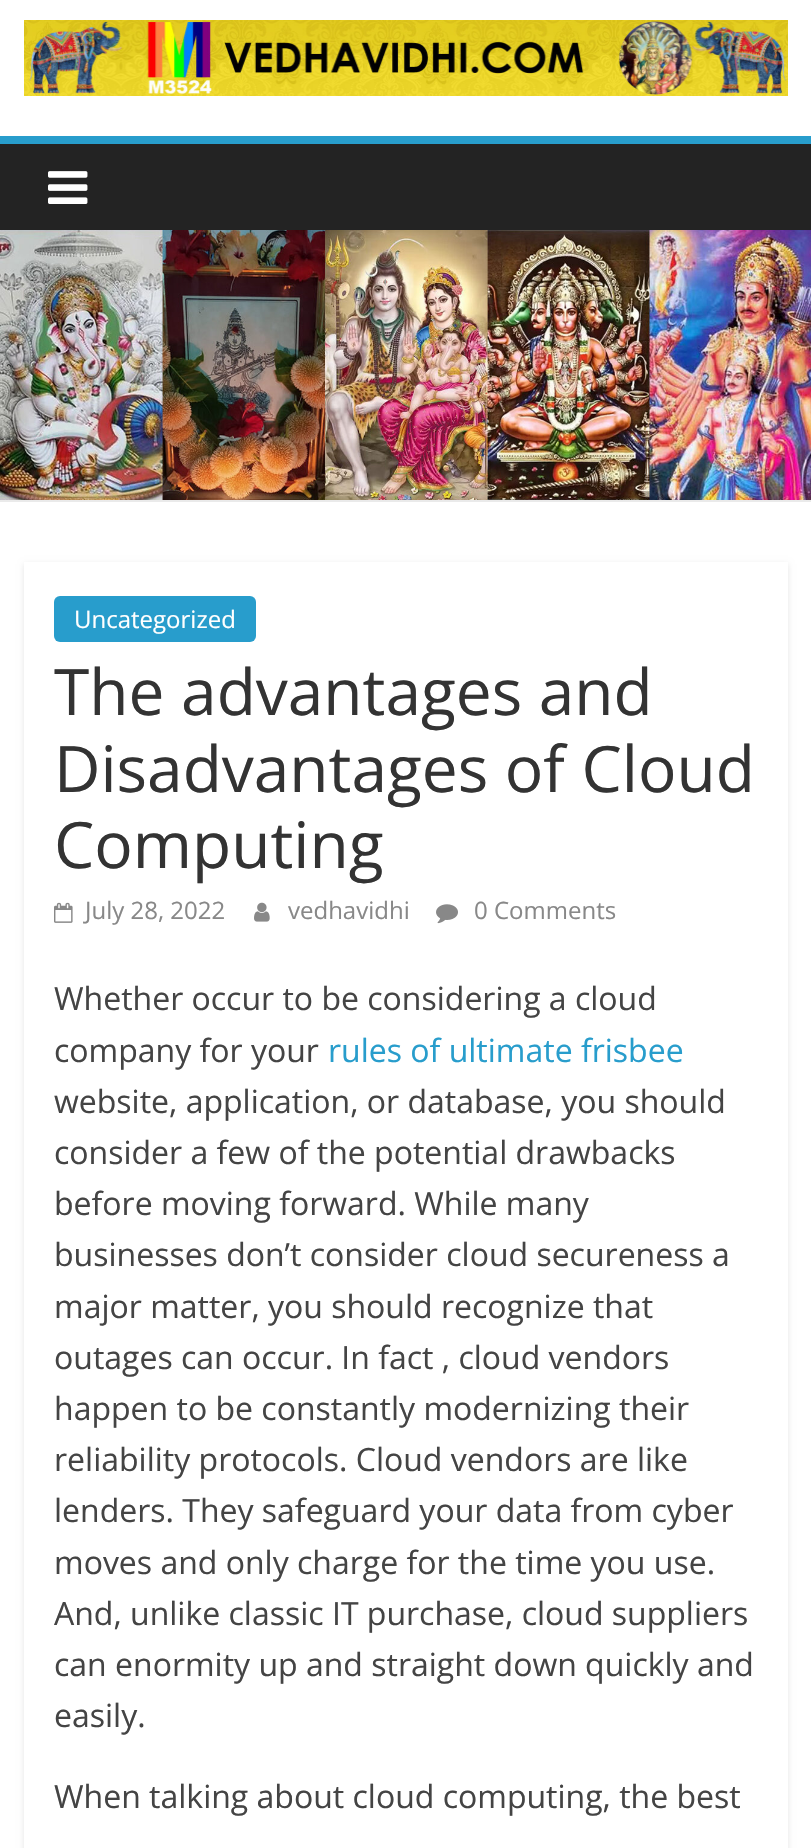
void draw(SkCanvas* canvas) {
    SkPaint paint;
    paint.setAntiAlias(true);
    canvas->clear(0xFFFFFFFF);
    canvas->drawImageRect(SkImages::DeferredFromEncodedData(SkData::MakeFromFileName("img1.png")), SkRect::MakeXYWH(24, 20, 764, 76), SkSamplingOptions());
    paint.setColor(0xFF232323);
    canvas->drawRect(SkRect::MakeXYWH(0, 144, 811, 86), paint);
    paint.setColor(0xFF289DCC);
    canvas->drawRect(SkRect::MakeXYWH(0, 136, 811, 8), paint);
    canvas->drawImageRect(SkImages::DeferredFromEncodedData(SkData::MakeFromFileName("img2.png")), SkRect::MakeXYWH(48, 171, 40, 33), SkSamplingOptions());
    canvas->drawImageRect(SkImages::DeferredFromEncodedData(SkData::MakeFromFileName("img3.png")), SkRect::MakeXYWH(0, 230, 811, 270), SkSamplingOptions());
    paint.setColor(0xFFEAEAEA);
    canvas->drawRect(SkRect::MakeXYWH(0, 500, 811, 2), paint);
    canvas->save();
    canvas->clipPath(SkPathBuilder(SkPathFillType::kEvenOdd).moveTo(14, 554).lineTo(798, 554).lineTo(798, 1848).lineTo(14, 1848).close().moveTo(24, 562).lineTo(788, 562).lineTo(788, 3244).lineTo(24, 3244).close().detach(), true);
    paint.setColor(0x1A000000);
    paint.setMaskFilter(SkMaskFilter::MakeBlur(kNormal_SkBlurStyle, 3));
    canvas->drawRect(SkRect::MakeXYWH(24, 564, 764, 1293), paint);
    paint.setMaskFilter(nullptr);
    canvas->restore();
    paint.setColor(0xFF289DCC);
    canvas->drawRoundRect(SkRect::MakeXYWH(54, 596, 202, 46), 6, 6, paint);
    SkFont font1(fontMgr->matchFamilyStyle("Open Sans", SkFontStyle::Normal()), 24);
    font1.setSubpixel(true);
    paint.setColor(0xFFFFFFFF);
    canvas->drawString("Uncategorized", 74, 628, font1, paint);
    SkFont font2(fontMgr->matchFamilyStyle("Open Sans", SkFontStyle::Normal()), 64);
    font2.setSubpixel(true);
    paint.setColor(0xFF333333);
    canvas->drawString("The advantages and", 54, 715, font2, paint);
    canvas->drawString("Disadvantages of Cloud", 54, 792, font2, paint);
    canvas->drawString("Computing", 54, 868, font2, paint);
    canvas->drawImageRect(SkImages::DeferredFromEncodedData(SkData::MakeFromFileName("img4.png")), SkRect::MakeXYWH(54, 902, 19, 21), SkSamplingOptions());
    paint.setColor(0xFF888888);
    canvas->drawString("July 28, 2022", 85, 919, font1, paint);
    canvas->drawImageRect(SkImages::DeferredFromEncodedData(SkData::MakeFromFileName("img5.png")), SkRect::MakeXYWH(254, 902, 16, 20), SkSamplingOptions());
    canvas->drawString("vedhavidhi", 288, 919, font1, paint);
    canvas->drawImageRect(SkImages::DeferredFromEncodedData(SkData::MakeFromFileName("img6.png")), SkRect::MakeXYWH(436, 904, 22, 20), SkSamplingOptions());
    canvas->drawString("0 Comments", 474, 919, font1, paint);
    SkFont font3(fontMgr->matchFamilyStyle("Open Sans", SkFontStyle::Normal()), 32);
    font3.setSubpixel(true);
    paint.setColor(0xFF444444);
    canvas->drawString("Whether occur to be considering a cloud", 54, 1010, font3, paint);
    canvas->drawString("company for your", 54, 1062, font3, paint);
    paint.setColor(0xFF289DCC);
    canvas->drawString("rules of ultimate frisbee", 328, 1062, font3, paint);
    paint.setColor(0xFF444444);
    canvas->drawString("website, application, or database, you should", 54, 1113, font3, paint);
    canvas->drawString("consider a few of the potential drawbacks", 54, 1164, font3, paint);
    canvas->drawString("before moving forward. While many", 54, 1215, font3, paint);
    canvas->drawString("businesses don’t consider cloud secureness a", 54, 1266, font3, paint);
    canvas->drawString("major matter, you should recognize that", 54, 1318, font3, paint);
    canvas->drawString("outages can occur. In fact , cloud vendors", 54, 1369, font3, paint);
    canvas->drawString("happen to be constantly modernizing their", 54, 1420, font3, paint);
    canvas->drawString("reliability protocols. Cloud vendors are like", 54, 1471, font3, paint);
    canvas->drawString("lenders. They safeguard your data from cyber", 54, 1522, font3, paint);
    canvas->drawString("moves and only charge for the time you use.", 54, 1574, font3, paint);
    canvas->drawString("And, unlike classic IT purchase, cloud suppliers", 54, 1625, font3, paint);
    canvas->drawString("can enormity up and straight down quickly and", 54, 1676, font3, paint);
    canvas->drawString("easily.", 54, 1727, font3, paint);
    canvas->drawString("When talking about cloud computing, the best", 54, 1808, font3, paint);
}
